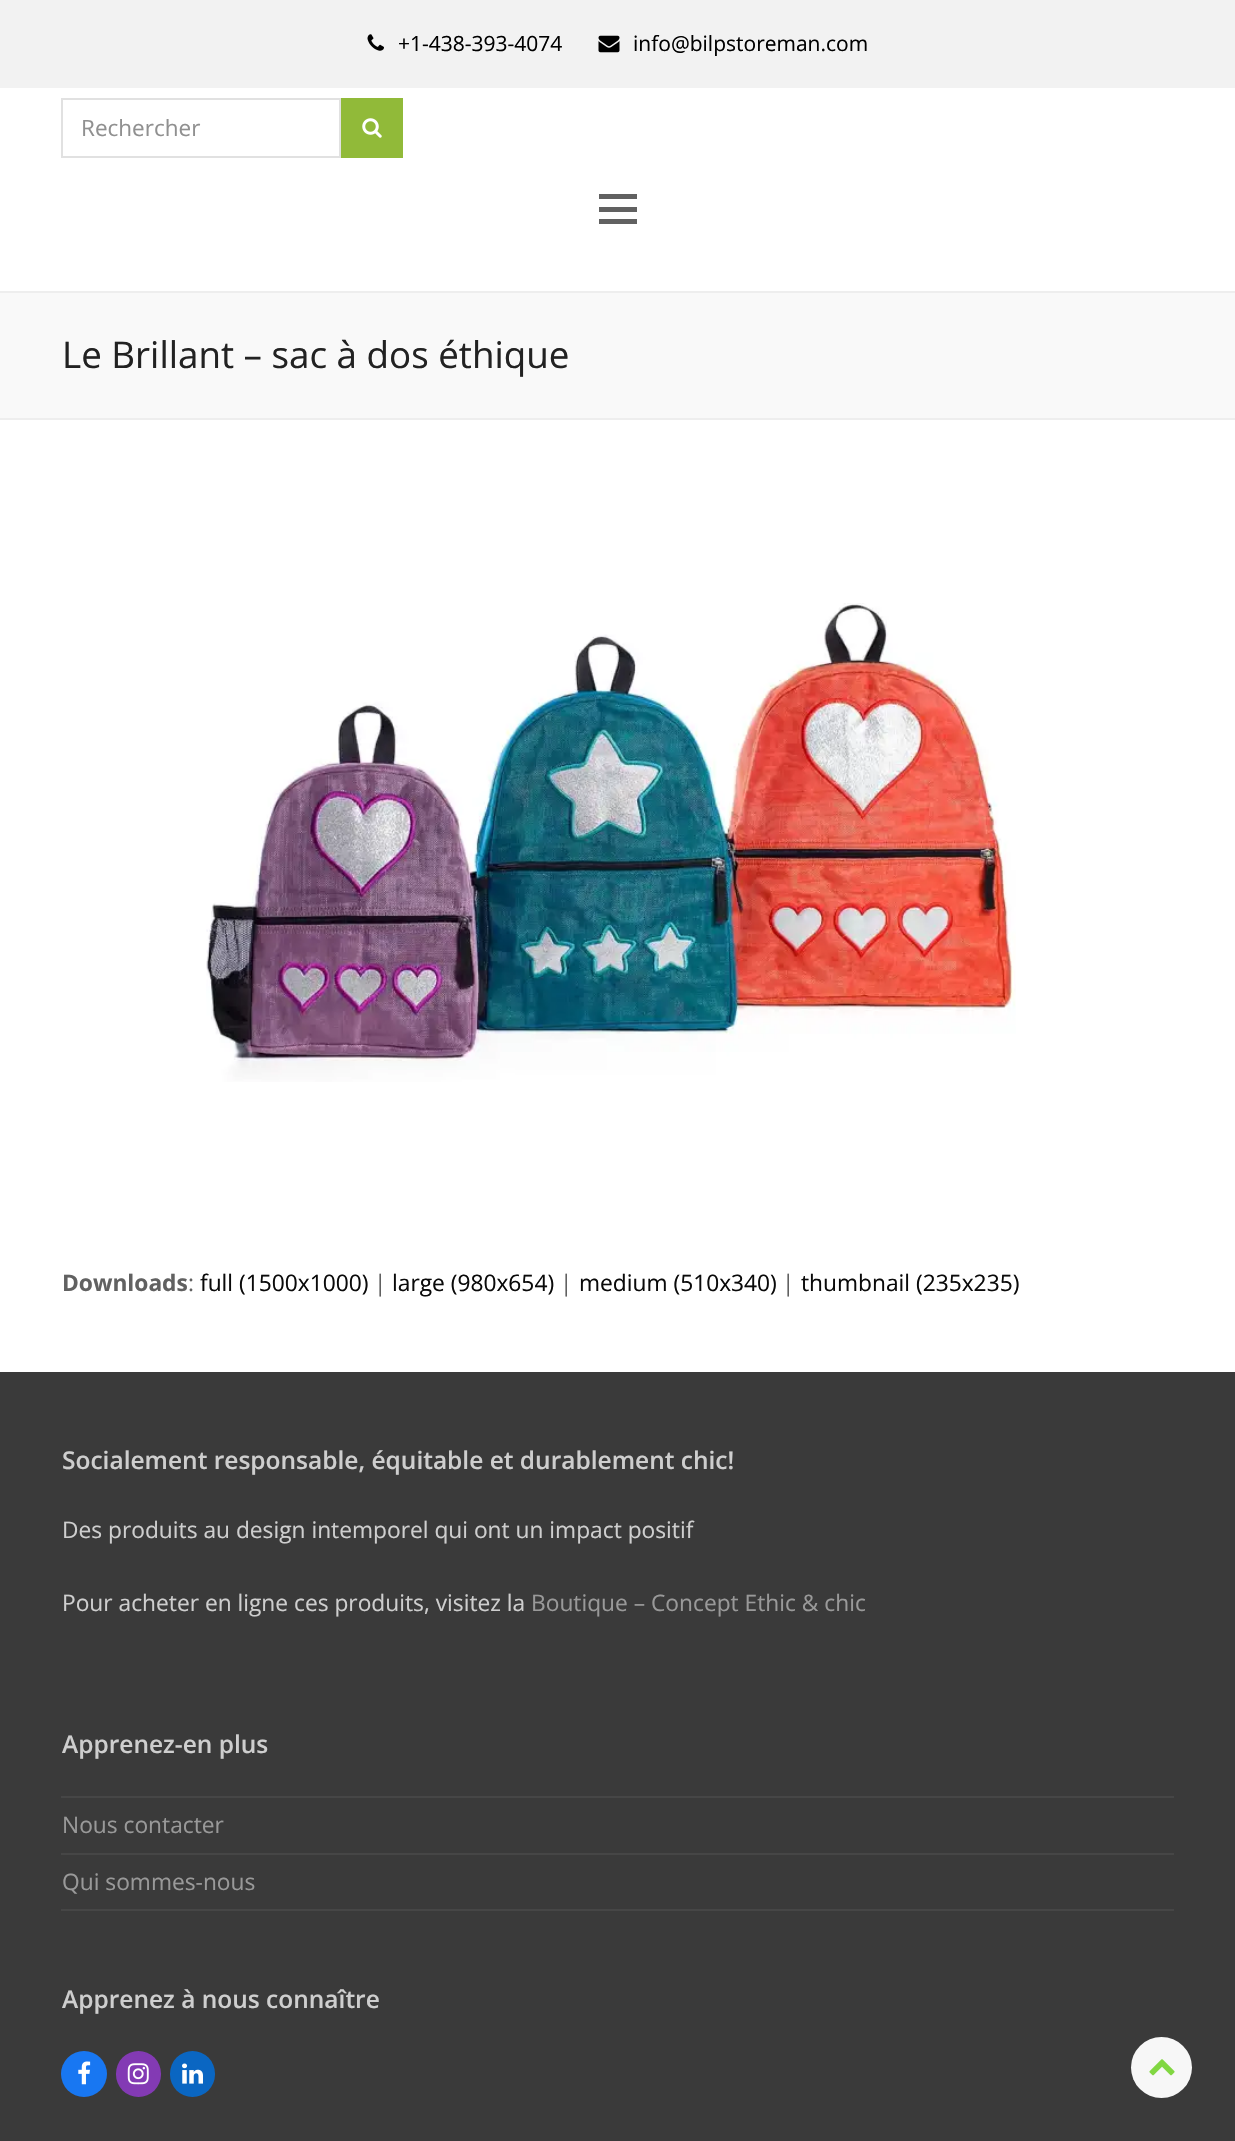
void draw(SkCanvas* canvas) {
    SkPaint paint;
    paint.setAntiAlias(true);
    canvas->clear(0xFFFFFFFF);
    paint.setColor(0xFFF2F2F2);
    canvas->drawRect(SkRect::MakeXYWH(0, 0, 1235, 88), paint);
    canvas->drawImageRect(SkImages::DeferredFromEncodedData(SkData::MakeFromFileName("img1.png")), SkRect::MakeXYWH(367, 34, 17, 17), SkSamplingOptions());
    SkFont font1(fontMgr->matchFamilyStyle("Open Sans", SkFontStyle::Normal()), 21);
    font1.setSubpixel(true);
    paint.setColor(0xFF000000);
    canvas->drawString("+1-438-393-4074", 398, 51, font1, paint);
    canvas->drawImageRect(SkImages::DeferredFromEncodedData(SkData::MakeFromFileName("img2.png")), SkRect::MakeXYWH(598, 35, 22, 18), SkSamplingOptions());
    canvas->drawString("info@bilpstoreman.com", 633, 51, font1, paint);
    paint.setStyle(SkPaint::kStroke_Style);
    paint.setStrokeWidth(2);
    paint.setColor(0xFFE1E1E1);
    canvas->drawRect(SkRect::MakeXYWH(62, 99, 278, 58), paint);
    SkFont font2(fontMgr->matchFamilyStyle("Open Sans", SkFontStyle::Normal()), 22.5f);
    font2.setSubpixel(true);
    paint.setStyle(SkPaint::kFill_Style);
    paint.setColor(0xFF909090);
    canvas->drawString("Rechercher", 81, 136, font2, paint);
    paint.setColor(0xFF91BA39);
    canvas->drawRect(SkRect::MakeXYWH(341, 98, 62, 60), paint);
    canvas->drawImageRect(SkImages::DeferredFromEncodedData(SkData::MakeFromFileName("img3.png")), SkRect::MakeXYWH(362, 118, 20, 20), SkSamplingOptions());
    paint.setColor(0xFF616161);
    canvas->drawRect(SkRect::MakeXYWH(599, 207, 38, 5), paint);
    canvas->drawRect(SkRect::MakeXYWH(599, 194, 38, 5), paint);
    canvas->drawRect(SkRect::MakeXYWH(599, 219, 38, 5), paint);
    paint.setColor(0xFFF9F9F9);
    canvas->drawRect(SkRect::MakeXYWH(0, 293, 1235, 125), paint);
    paint.setColor(0xFFEEEEEE);
    canvas->drawRect(SkRect::MakeXYWH(0, 291, 1235, 2), paint);
    canvas->drawRect(SkRect::MakeXYWH(0, 418, 1235, 2), paint);
    SkFont font3(fontMgr->matchFamilyStyle("Open Sans", SkFontStyle::Normal()), 36.75f);
    font3.setSubpixel(true);
    paint.setColor(0xFF222222);
    canvas->drawString("Le Brillant – sac à dos éthique", 62, 368, font3, paint);
    canvas->drawImageRect(SkImages::DeferredFromEncodedData(SkData::MakeFromFileName("img4.png")), SkRect::MakeXYWH(206, 603, 810, 479), SkSamplingOptions());
    SkFont font4(fontMgr->matchFamilyStyle("Open Sans", SkFontStyle::Bold()), 22.75f);
    font4.setSubpixel(true);
    paint.setColor(0xFF616161);
    canvas->drawString("Downloads", 62, 1291, font4, paint);
    SkFont font5(fontMgr->matchFamilyStyle("Open Sans", SkFontStyle::Normal()), 22.75f);
    font5.setSubpixel(true);
    canvas->drawString(":", 188, 1291, font5, paint);
    paint.setColor(0xFF0A0A0A);
    canvas->drawString("full (1500x1000)", 200, 1291, font5, paint);
    paint.setColor(0xFF616161);
    canvas->drawString("|", 374, 1291, font5, paint);
    paint.setColor(0xFF0A0A0A);
    canvas->drawString("large (980x654)", 392, 1291, font5, paint);
    paint.setColor(0xFF616161);
    canvas->drawString("|", 560, 1291, font5, paint);
    paint.setColor(0xFF0A0A0A);
    canvas->drawString("medium (510x340)", 579, 1291, font5, paint);
    paint.setColor(0xFF616161);
    canvas->drawString("|", 782, 1291, font5, paint);
    paint.setColor(0xFF0A0A0A);
    canvas->drawString("thumbnail (235x235)", 801, 1291, font5, paint);
    paint.setColor(0xFF3A3A3A);
    canvas->drawRect(SkRect::MakeXYWH(0, 1372, 1235, 769), paint);
    SkFont font6(fontMgr->matchFamilyStyle("Open Sans", SkFontStyle(600, SkFontStyle::kNormal_Width, SkFontStyle::kUpright_Slant)), 24.5f);
    font6.setSubpixel(true);
    paint.setColor(0xFFCECECE);
    canvas->drawString("Socialement responsable, équitable et durablement chic!", 62, 1469, font6, paint);
    canvas->drawString("Des produits au design intemporel qui ont un impact positif", 62, 1538, font5, paint);
    canvas->drawString("Pour acheter en ligne ces produits, visitez la", 62, 1611, font5, paint);
    paint.setColor(0xFF999999);
    canvas->drawString("Boutique – Concept Ethic & chic", 531, 1611, font5, paint);
    paint.setColor(0xFFCECECE);
    canvas->drawString("Apprenez-en plus", 62, 1753, font6, paint);
    paint.setColor(0xFF464646);
    canvas->drawRect(SkRect::MakeXYWH(61, 1796, 1113, 2), paint);
    canvas->drawRect(SkRect::MakeXYWH(61, 1853, 1113, 2), paint);
    paint.setColor(0xFF999999);
    canvas->drawString("Nous contacter", 62, 1833, font5, paint);
    paint.setColor(0xFF464646);
    canvas->drawRect(SkRect::MakeXYWH(61, 1909, 1113, 2), paint);
    paint.setColor(0xFF999999);
    canvas->drawString("Qui sommes-nous", 62, 1890, font5, paint);
    paint.setColor(0xFFCECECE);
    canvas->drawString("Apprenez à nous connaître", 62, 2008, font6, paint);
    paint.setColor(0xFF1877F2);
    canvas->drawCircle(84, 2074, 23, paint);
    canvas->drawImageRect(SkImages::DeferredFromEncodedData(SkData::MakeFromFileName("img5.png")), SkRect::MakeXYWH(78, 2061, 13, 24), SkSamplingOptions());
    paint.setColor(0xFF833AB4);
    canvas->drawRoundRect(SkRect::MakeXYWH(116, 2051, 45, 46), 22.5f, 22.5f, paint);
    canvas->drawImageRect(SkImages::DeferredFromEncodedData(SkData::MakeFromFileName("img6.png")), SkRect::MakeXYWH(127, 2063, 22, 22), SkSamplingOptions());
    paint.setColor(0xFF0A66C2);
    canvas->drawRoundRect(SkRect::MakeXYWH(170, 2051, 45, 46), 22.5f, 22.5f, paint);
    canvas->drawImageRect(SkImages::DeferredFromEncodedData(SkData::MakeFromFileName("img7.png")), SkRect::MakeXYWH(182, 2063, 21, 21), SkSamplingOptions());
    paint.setColor(0xFFF7F7F7);
    canvas->drawCircle(1161.5f, 2067.5f, 30.5f, paint);
    canvas->drawImageRect(SkImages::DeferredFromEncodedData(SkData::MakeFromFileName("img8.png")), SkRect::MakeXYWH(1149, 2059, 26, 17), SkSamplingOptions());
}
